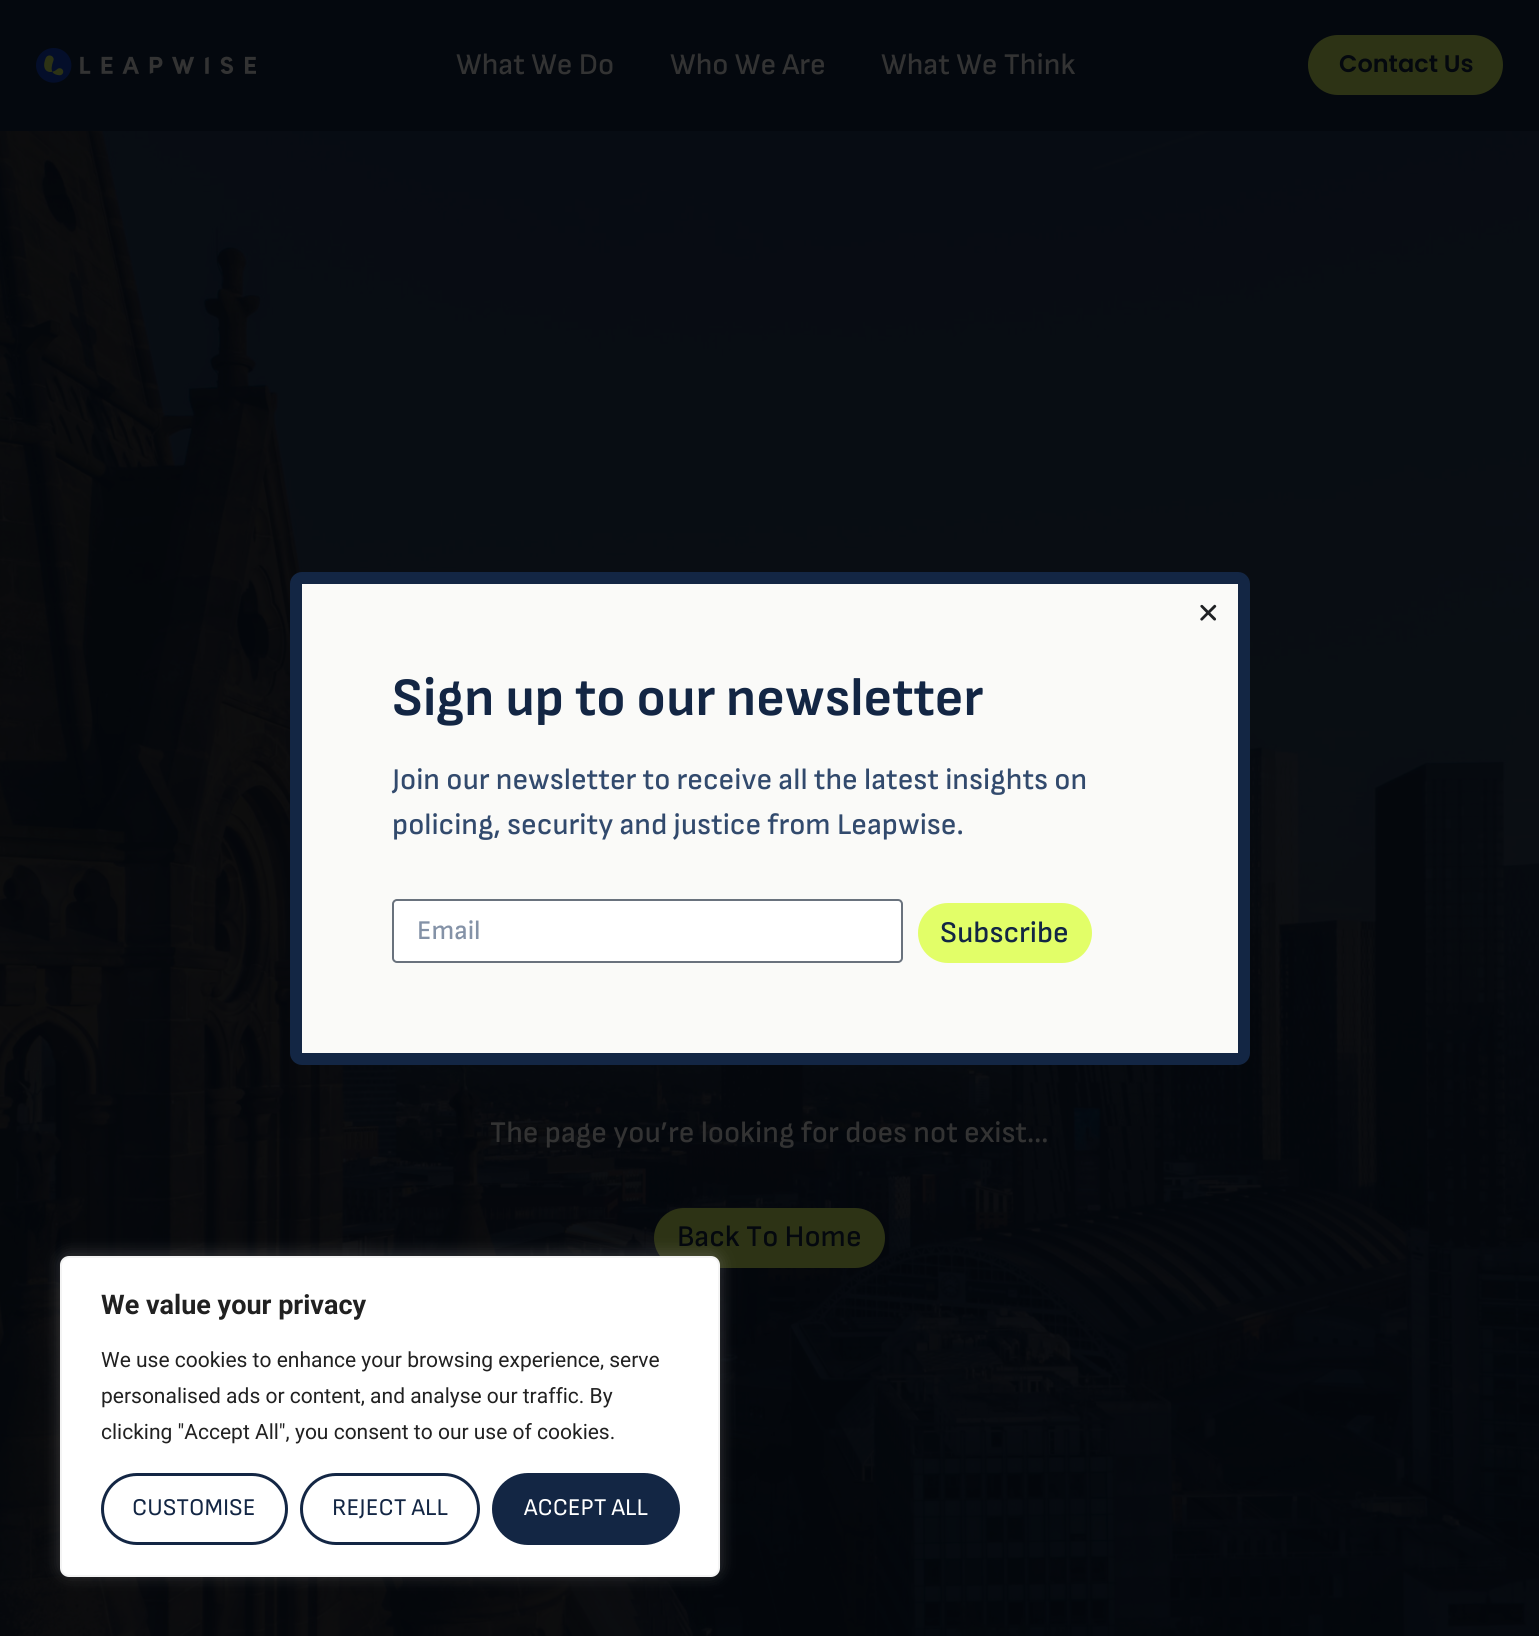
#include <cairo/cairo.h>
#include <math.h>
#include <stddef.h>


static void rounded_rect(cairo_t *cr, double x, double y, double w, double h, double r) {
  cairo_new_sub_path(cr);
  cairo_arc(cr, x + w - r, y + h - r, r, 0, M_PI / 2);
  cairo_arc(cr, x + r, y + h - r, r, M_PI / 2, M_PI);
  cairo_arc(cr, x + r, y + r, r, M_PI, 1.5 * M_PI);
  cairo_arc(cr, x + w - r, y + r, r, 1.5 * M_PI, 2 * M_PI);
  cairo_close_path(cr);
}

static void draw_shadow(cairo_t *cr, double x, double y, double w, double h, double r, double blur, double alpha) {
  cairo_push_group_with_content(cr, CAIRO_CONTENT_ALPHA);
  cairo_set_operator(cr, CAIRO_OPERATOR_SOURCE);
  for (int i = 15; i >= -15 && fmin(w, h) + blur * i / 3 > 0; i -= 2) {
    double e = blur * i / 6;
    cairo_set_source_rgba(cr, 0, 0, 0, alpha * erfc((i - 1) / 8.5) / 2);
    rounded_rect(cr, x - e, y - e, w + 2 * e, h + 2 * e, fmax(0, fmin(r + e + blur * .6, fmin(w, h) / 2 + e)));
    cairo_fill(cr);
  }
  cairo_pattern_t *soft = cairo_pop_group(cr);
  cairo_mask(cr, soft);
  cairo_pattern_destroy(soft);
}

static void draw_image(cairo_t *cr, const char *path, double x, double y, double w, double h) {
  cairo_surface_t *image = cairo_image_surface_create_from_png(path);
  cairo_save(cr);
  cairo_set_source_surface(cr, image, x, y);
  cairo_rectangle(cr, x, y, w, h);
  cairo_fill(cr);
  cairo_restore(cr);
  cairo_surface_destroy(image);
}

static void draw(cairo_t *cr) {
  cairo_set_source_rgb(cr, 1, 1, 1);
  cairo_paint(cr);
  cairo_set_source_rgb(cr, 4 / 255.0, 8 / 255.0, 14 / 255.0);
  cairo_rectangle(cr, 0, 0, 1539, 131);
  cairo_fill(cr);
  draw_image(cr, "images/1.png", 36, 48, 220, 35);
  cairo_set_source_rgb(cr, 45 / 255.0, 51 / 255.0, 21 / 255.0);
  rounded_rect(cr, 1308, 35, 195, 60, 30);
  cairo_fill(cr);
  draw_image(cr, "images/3.png", 0, 131, 1539, 1505);
  cairo_set_source_rgb(cr, 250 / 255.0, 250 / 255.0, 248 / 255.0);
  rounded_rect(cr, 296, 578, 948, 481, 6);
  cairo_fill_preserve(cr);
  cairo_set_source_rgb(cr, 19 / 255.0, 38 / 255.0, 68 / 255.0);
  cairo_set_line_width(cr, 12);
  cairo_stroke(cr);
  draw_image(cr, "images/2.png", 1200, 604, 17, 17);
  cairo_set_source_rgb(cr, 1, 1, 1);
  rounded_rect(cr, 393, 900, 509, 62, 4);
  cairo_fill_preserve(cr);
  cairo_set_source_rgb(cr, 105 / 255.0, 114 / 255.0, 125 / 255.0);
  cairo_set_line_width(cr, 2);
  cairo_stroke(cr);
  cairo_set_source_rgb(cr, 226 / 255.0, 254 / 255.0, 104 / 255.0);
  rounded_rect(cr, 918, 903, 174, 60, 30);
  cairo_fill(cr);
  cairo_set_source_rgb(cr, 45 / 255.0, 51 / 255.0, 21 / 255.0);
  rounded_rect(cr, 654, 1208, 231, 60, 30);
  cairo_fill(cr);
  cairo_set_source_rgb(cr, 172 / 255.0, 171 / 255.0, 171 / 255.0);
  draw_shadow(cr, 60, 1254, 660, 321, 9, 7.5, 0.3);
  cairo_set_source_rgb(cr, 1, 1, 1);
  rounded_rect(cr, 61, 1257, 658, 319, 8);
  cairo_fill_preserve(cr);
  cairo_set_source_rgb(cr, 244 / 255.0, 244 / 255.0, 244 / 255.0);
  cairo_stroke(cr);
  rounded_rect(cr, 102.5, 1474.5, 184, 69, 34.5);
  cairo_set_source_rgb(cr, 19 / 255.0, 38 / 255.0, 68 / 255.0);
  cairo_set_line_width(cr, 3);
  cairo_stroke(cr);
  rounded_rect(cr, 301.5, 1474.5, 177, 69, 34.5);
  cairo_stroke(cr);
  rounded_rect(cr, 493.5, 1474.5, 185, 69, 34.5);
  cairo_fill_preserve(cr);
  cairo_stroke(cr);
  cairo_select_font_face(cr, "Sofia Sans Medium", CAIRO_FONT_SLANT_NORMAL, CAIRO_FONT_WEIGHT_NORMAL);
  cairo_set_font_size(cr, 30);
  cairo_set_source_rgb(cr, 51 / 255.0, 51 / 255.0, 51 / 255.0);
  cairo_move_to(cr, 456, 74);
  cairo_show_text(cr, "What We Do");
  cairo_move_to(cr, 670, 74);
  cairo_show_text(cr, "Who We Are");
  cairo_move_to(cr, 881, 74);
  cairo_show_text(cr, "What We Think");
  cairo_select_font_face(cr, "Poppins SemiBold", CAIRO_FONT_SLANT_NORMAL, CAIRO_FONT_WEIGHT_NORMAL);
  cairo_set_font_size(cr, 24);
  cairo_set_source_rgb(cr, 4 / 255.0, 8 / 255.0, 14 / 255.0);
  cairo_move_to(cr, 1339, 72);
  cairo_show_text(cr, "Contact Us");
  cairo_select_font_face(cr, "Sofia Sans", CAIRO_FONT_SLANT_NORMAL, CAIRO_FONT_WEIGHT_BOLD);
  cairo_set_font_size(cr, 54);
  cairo_set_source_rgb(cr, 19 / 255.0, 38 / 255.0, 68 / 255.0);
  cairo_move_to(cr, 392, 715);
  cairo_show_text(cr, "Sign up to our newsletter");
  cairo_select_font_face(cr, "Sofia Sans Medium", CAIRO_FONT_SLANT_NORMAL, CAIRO_FONT_WEIGHT_NORMAL);
  cairo_set_font_size(cr, 30);
  cairo_set_source_rgb(cr, 50 / 255.0, 74 / 255.0, 109 / 255.0);
  cairo_move_to(cr, 392, 789);
  cairo_show_text(cr, "Join our newsletter to receive all the latest insights on");
  cairo_move_to(cr, 392, 834);
  cairo_show_text(cr, "policing, security and justice from Leapwise.");
  cairo_set_font_size(cr, 27);
  cairo_set_source_rgb(cr, 132 / 255.0, 146 / 255.0, 167 / 255.0);
  cairo_move_to(cr, 417, 939);
  cairo_show_text(cr, "Email");
  cairo_set_font_size(cr, 30);
  cairo_set_source_rgb(cr, 19 / 255.0, 38 / 255.0, 68 / 255.0);
  cairo_move_to(cr, 940, 942);
  cairo_show_text(cr, "Subscribe");
  cairo_set_source_rgb(cr, 51 / 255.0, 51 / 255.0, 51 / 255.0);
  cairo_move_to(cr, 490, 1142);
  cairo_show_text(cr, "The page you’re looking for does not exist…");
  cairo_set_source_rgb(cr, 4 / 255.0, 8 / 255.0, 14 / 255.0);
  cairo_move_to(cr, 677, 1246);
  cairo_show_text(cr, "Back To Home");
  cairo_select_font_face(cr, "Roboto", CAIRO_FONT_SLANT_NORMAL, CAIRO_FONT_WEIGHT_BOLD);
  cairo_set_font_size(cr, 27);
  cairo_set_source_rgb(cr, 33 / 255.0, 33 / 255.0, 33 / 255.0);
  cairo_move_to(cr, 101, 1314);
  cairo_show_text(cr, "We value your privacy");
  cairo_select_font_face(cr, "Roboto", CAIRO_FONT_SLANT_NORMAL, CAIRO_FONT_WEIGHT_NORMAL);
  cairo_set_font_size(cr, 21);
  cairo_move_to(cr, 101, 1367);
  cairo_show_text(cr, "We use cookies to enhance your browsing experience, serve");
  cairo_move_to(cr, 101, 1403);
  cairo_show_text(cr, "personalised ads or content, and analyse our traffic. By");
  cairo_move_to(cr, 101, 1439);
  cairo_show_text(cr, "clicking \"Accept All\", you consent to our use of cookies.");
  cairo_select_font_face(cr, "Sofia Sans", CAIRO_FONT_SLANT_NORMAL, CAIRO_FONT_WEIGHT_NORMAL);
  cairo_set_font_size(cr, 24);
  cairo_set_source_rgb(cr, 19 / 255.0, 38 / 255.0, 68 / 255.0);
  cairo_move_to(cr, 132, 1515);
  cairo_show_text(cr, "CUSTOMISE");
  cairo_move_to(cr, 332, 1515);
  cairo_show_text(cr, "REJECT ALL");
  cairo_set_source_rgb(cr, 1, 1, 1);
  cairo_move_to(cr, 524, 1515);
  cairo_show_text(cr, "ACCEPT ALL");
}

int main(void) {
  cairo_surface_t *surface = cairo_image_surface_create(CAIRO_FORMAT_RGB24, 1539, 1636);
  cairo_t *cr = cairo_create(surface);
  cairo_font_options_t *options = cairo_font_options_create();
  cairo_font_options_set_hint_metrics(options, CAIRO_HINT_METRICS_OFF);
  cairo_font_options_set_hint_style(options, CAIRO_HINT_STYLE_NONE);
  cairo_set_font_options(cr, options);
  cairo_set_miter_limit(cr, 4);
  draw(cr);
  cairo_surface_write_to_png(surface, "out.png");
  cairo_font_options_destroy(options);
  cairo_destroy(cr);
  cairo_surface_destroy(surface);
  return 0;
}
